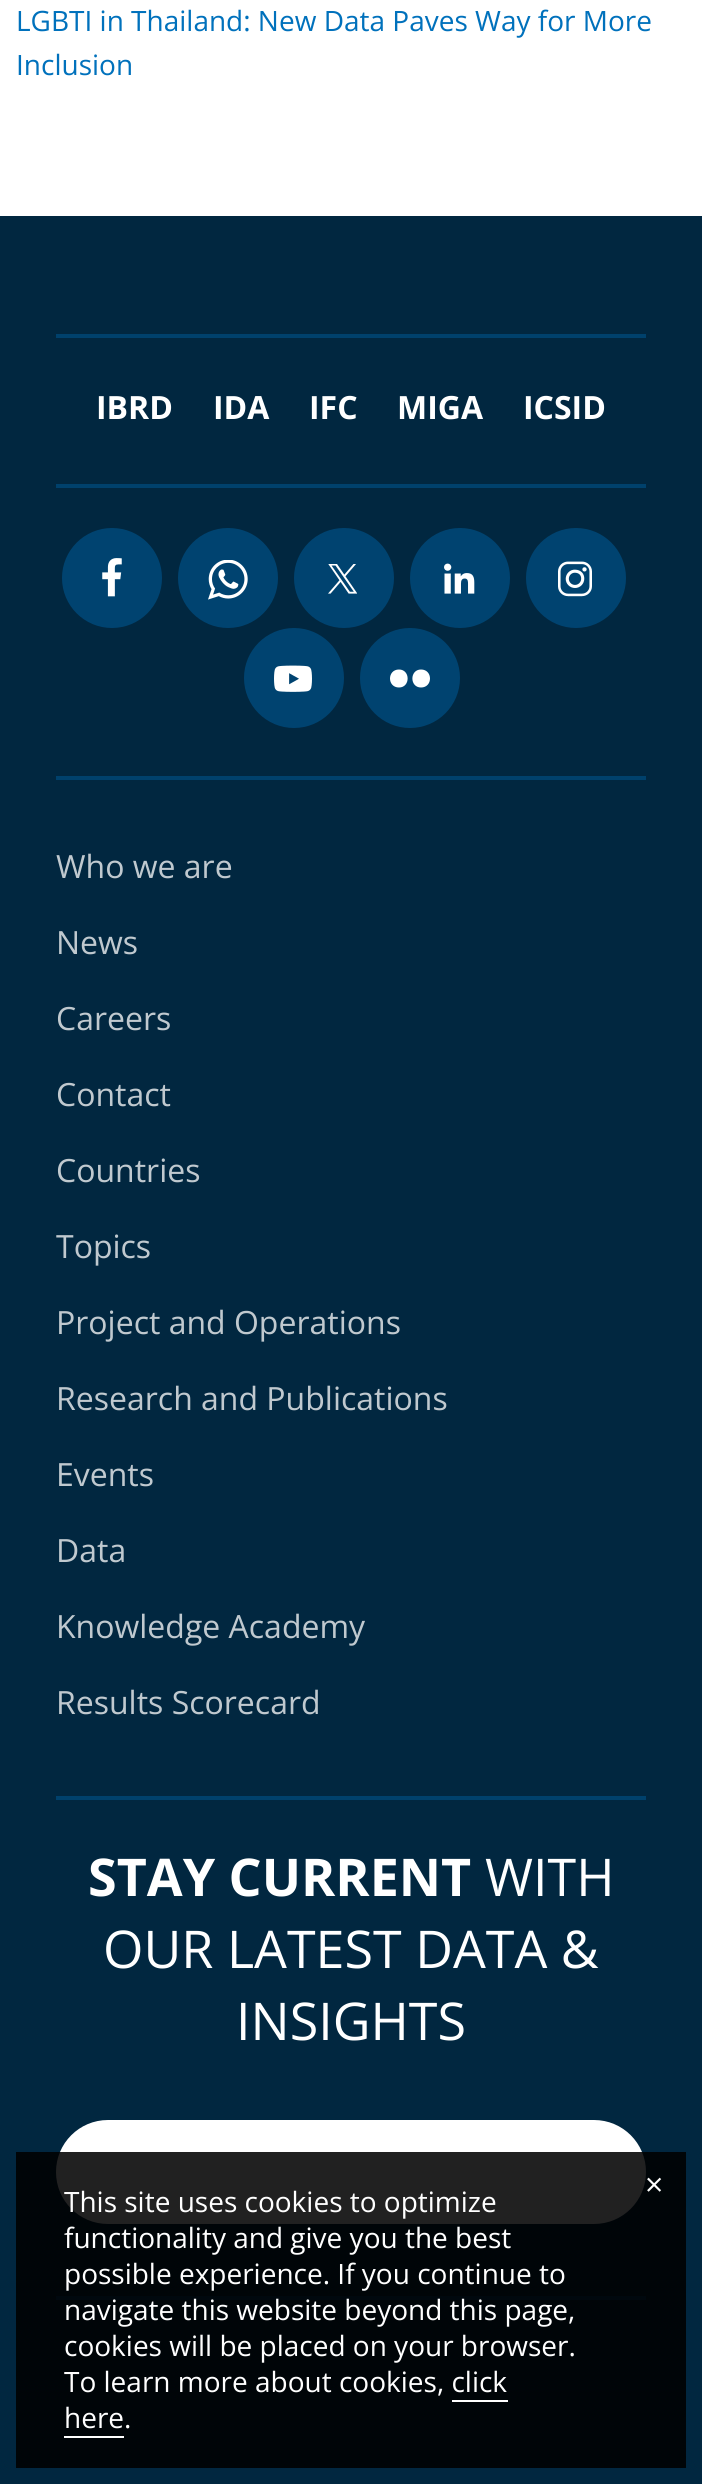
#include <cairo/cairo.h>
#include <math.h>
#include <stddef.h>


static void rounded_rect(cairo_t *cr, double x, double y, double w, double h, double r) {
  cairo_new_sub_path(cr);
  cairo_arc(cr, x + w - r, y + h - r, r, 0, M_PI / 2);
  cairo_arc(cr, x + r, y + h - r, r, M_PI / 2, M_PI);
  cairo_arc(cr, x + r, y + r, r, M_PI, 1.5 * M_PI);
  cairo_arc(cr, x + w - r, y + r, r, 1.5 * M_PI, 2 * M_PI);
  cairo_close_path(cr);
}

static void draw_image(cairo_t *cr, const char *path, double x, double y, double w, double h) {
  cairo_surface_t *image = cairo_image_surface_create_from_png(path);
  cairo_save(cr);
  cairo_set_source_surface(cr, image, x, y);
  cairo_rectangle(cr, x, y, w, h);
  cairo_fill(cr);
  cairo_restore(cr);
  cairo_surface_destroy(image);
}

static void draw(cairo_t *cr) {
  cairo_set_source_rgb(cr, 1, 1, 1);
  cairo_paint(cr);
  cairo_set_source_rgb(cr, 1 / 255.0, 39 / 255.0, 64 / 255.0);
  cairo_rectangle(cr, 0, 216, 702, 2268);
  cairo_fill(cr);
  cairo_set_source_rgb(cr, 0, 65 / 255.0, 108 / 255.0);
  cairo_rectangle(cr, 56, 776, 590, 4);
  cairo_fill(cr);
  cairo_rectangle(cr, 56, 334, 590, 4);
  cairo_fill(cr);
  cairo_rectangle(cr, 56, 484, 590, 4);
  cairo_fill(cr);
  cairo_set_source_rgb(cr, 0, 67 / 255.0, 112 / 255.0);
  cairo_arc(cr, 112, 578, 50, 0, 2 * M_PI);
  cairo_fill(cr);
  draw_image(cr, "images/1.png", 102, 558, 20, 39);
  cairo_arc(cr, 228, 578, 50, 0, 2 * M_PI);
  cairo_fill(cr);
  draw_image(cr, "images/2.png", 208, 560, 40, 40);
  cairo_arc(cr, 344, 578, 50, 0, 2 * M_PI);
  cairo_fill(cr);
  draw_image(cr, "images/3.png", 328, 564, 29, 30);
  cairo_arc(cr, 460, 578, 50, 0, 2 * M_PI);
  cairo_fill(cr);
  draw_image(cr, "images/4.png", 444, 563, 31, 31);
  cairo_arc(cr, 576, 578, 50, 0, 2 * M_PI);
  cairo_fill(cr);
  draw_image(cr, "images/5.png", 558, 561, 34, 36);
  cairo_arc(cr, 294, 678, 50, 0, 2 * M_PI);
  cairo_fill(cr);
  draw_image(cr, "images/6.png", 274, 665, 38, 27);
  cairo_arc(cr, 410, 678, 50, 0, 2 * M_PI);
  cairo_fill(cr);
  cairo_set_source_rgb(cr, 1, 1, 1);
  cairo_new_path(cr);
  cairo_move_to(cr, 399, 669.5);
  cairo_curve_to(cr, 387, 669.5, 387, 687.5, 399, 687.5);
  cairo_curve_to(cr, 410.5, 687.5, 410.5, 669.5, 399, 669.5);
  cairo_close_path(cr);
  cairo_move_to(cr, 421, 669.5);
  cairo_curve_to(cr, 409.5, 669.5, 409.5, 687.5, 421, 687.5);
  cairo_curve_to(cr, 433, 687.5, 433, 669.5, 421, 669.5);
  cairo_close_path(cr);
  cairo_fill(cr);
  cairo_set_source_rgb(cr, 0, 65 / 255.0, 108 / 255.0);
  cairo_rectangle(cr, 56, 2296, 590, 4);
  cairo_fill(cr);
  cairo_rectangle(cr, 56, 1796, 590, 4);
  cairo_fill(cr);
  cairo_set_source_rgb(cr, 1, 1, 1);
  rounded_rect(cr, 56, 2120, 590, 104, 52);
  cairo_fill(cr);
  cairo_set_source_rgba(cr, 0, 0, 0, 0.87);
  cairo_rectangle(cr, 16, 2152, 670, 316);
  cairo_fill(cr);
  cairo_set_source_rgb(cr, 1, 1, 1);
  cairo_rectangle(cr, 452, 2400, 56, 2);
  cairo_fill(cr);
  cairo_rectangle(cr, 64, 2436, 60, 2);
  cairo_fill(cr);
  cairo_select_font_face(cr, "Open Sans", CAIRO_FONT_SLANT_NORMAL, CAIRO_FONT_WEIGHT_NORMAL);
  cairo_set_font_size(cr, 28);
  cairo_set_source_rgb(cr, 0, 113 / 255.0, 188 / 255.0);
  cairo_move_to(cr, 16, 31);
  cairo_show_text(cr, "LGBTI in Thailand: New Data Paves Way for More");
  cairo_move_to(cr, 16, 75);
  cairo_show_text(cr, "Inclusion");
  cairo_select_font_face(cr, "Open Sans", CAIRO_FONT_SLANT_NORMAL, CAIRO_FONT_WEIGHT_BOLD);
  cairo_set_font_size(cr, 32);
  cairo_set_source_rgb(cr, 1, 1, 1);
  cairo_move_to(cr, 96, 419);
  cairo_show_text(cr, "IBRD");
  cairo_move_to(cr, 213, 419);
  cairo_show_text(cr, "IDA");
  cairo_move_to(cr, 309, 419);
  cairo_show_text(cr, "IFC");
  cairo_move_to(cr, 397, 419);
  cairo_show_text(cr, "MIGA");
  cairo_move_to(cr, 523, 419);
  cairo_show_text(cr, "ICSID");
  cairo_select_font_face(cr, "Open Sans", CAIRO_FONT_SLANT_NORMAL, CAIRO_FONT_WEIGHT_NORMAL);
  cairo_set_source_rgb(cr, 192 / 255.0, 201 / 255.0, 207 / 255.0);
  cairo_move_to(cr, 56, 878);
  cairo_show_text(cr, "Who we are");
  cairo_move_to(cr, 56, 954);
  cairo_show_text(cr, "News");
  cairo_move_to(cr, 56, 1030);
  cairo_show_text(cr, "Careers");
  cairo_move_to(cr, 56, 1106);
  cairo_show_text(cr, "Contact");
  cairo_move_to(cr, 56, 1182);
  cairo_show_text(cr, "Countries");
  cairo_move_to(cr, 56, 1258);
  cairo_show_text(cr, "Topics");
  cairo_move_to(cr, 56, 1334);
  cairo_show_text(cr, "Project and Operations");
  cairo_move_to(cr, 56, 1410);
  cairo_show_text(cr, "Research and Publications");
  cairo_move_to(cr, 56, 1486);
  cairo_show_text(cr, "Events");
  cairo_move_to(cr, 56, 1562);
  cairo_show_text(cr, "Data");
  cairo_move_to(cr, 56, 1638);
  cairo_show_text(cr, "Knowledge Academy");
  cairo_move_to(cr, 56, 1714);
  cairo_show_text(cr, "Results Scorecard");
  cairo_select_font_face(cr, "Open Sans", CAIRO_FONT_SLANT_NORMAL, CAIRO_FONT_WEIGHT_BOLD);
  cairo_set_font_size(cr, 52);
  cairo_set_source_rgb(cr, 1, 1, 1);
  cairo_move_to(cr, 88, 1896);
  cairo_show_text(cr, "STAY CURRENT");
  cairo_select_font_face(cr, "Open Sans", CAIRO_FONT_SLANT_NORMAL, CAIRO_FONT_WEIGHT_NORMAL);
  cairo_move_to(cr, 485, 1896);
  cairo_show_text(cr, "WITH");
  cairo_move_to(cr, 103, 1968);
  cairo_show_text(cr, "OUR LATEST DATA &");
  cairo_move_to(cr, 236, 2040);
  cairo_show_text(cr, "INSIGHTS");
  cairo_set_font_size(cr, 32);
  cairo_move_to(cr, 645, 2196);
  cairo_show_text(cr, "×");
  cairo_set_font_size(cr, 28);
  cairo_move_to(cr, 64, 2212);
  cairo_show_text(cr, "This site uses cookies to optimize");
  cairo_move_to(cr, 64, 2248);
  cairo_show_text(cr, "functionality and give you the best");
  cairo_move_to(cr, 64, 2284);
  cairo_show_text(cr, "possible experience. If you continue to");
  cairo_move_to(cr, 64, 2320);
  cairo_show_text(cr, "navigate this website beyond this page,");
  cairo_move_to(cr, 64, 2356);
  cairo_show_text(cr, "cookies will be placed on your browser.");
  cairo_move_to(cr, 64, 2392);
  cairo_show_text(cr, "To learn more about cookies, click");
  cairo_move_to(cr, 64, 2428);
  cairo_show_text(cr, "here.");
}

int main(void) {
  cairo_surface_t *surface = cairo_image_surface_create(CAIRO_FORMAT_RGB24, 702, 2484);
  cairo_t *cr = cairo_create(surface);
  cairo_font_options_t *options = cairo_font_options_create();
  cairo_font_options_set_hint_metrics(options, CAIRO_HINT_METRICS_OFF);
  cairo_font_options_set_hint_style(options, CAIRO_HINT_STYLE_NONE);
  cairo_set_font_options(cr, options);
  cairo_set_miter_limit(cr, 4);
  draw(cr);
  cairo_surface_write_to_png(surface, "out.png");
  cairo_font_options_destroy(options);
  cairo_destroy(cr);
  cairo_surface_destroy(surface);
  return 0;
}
